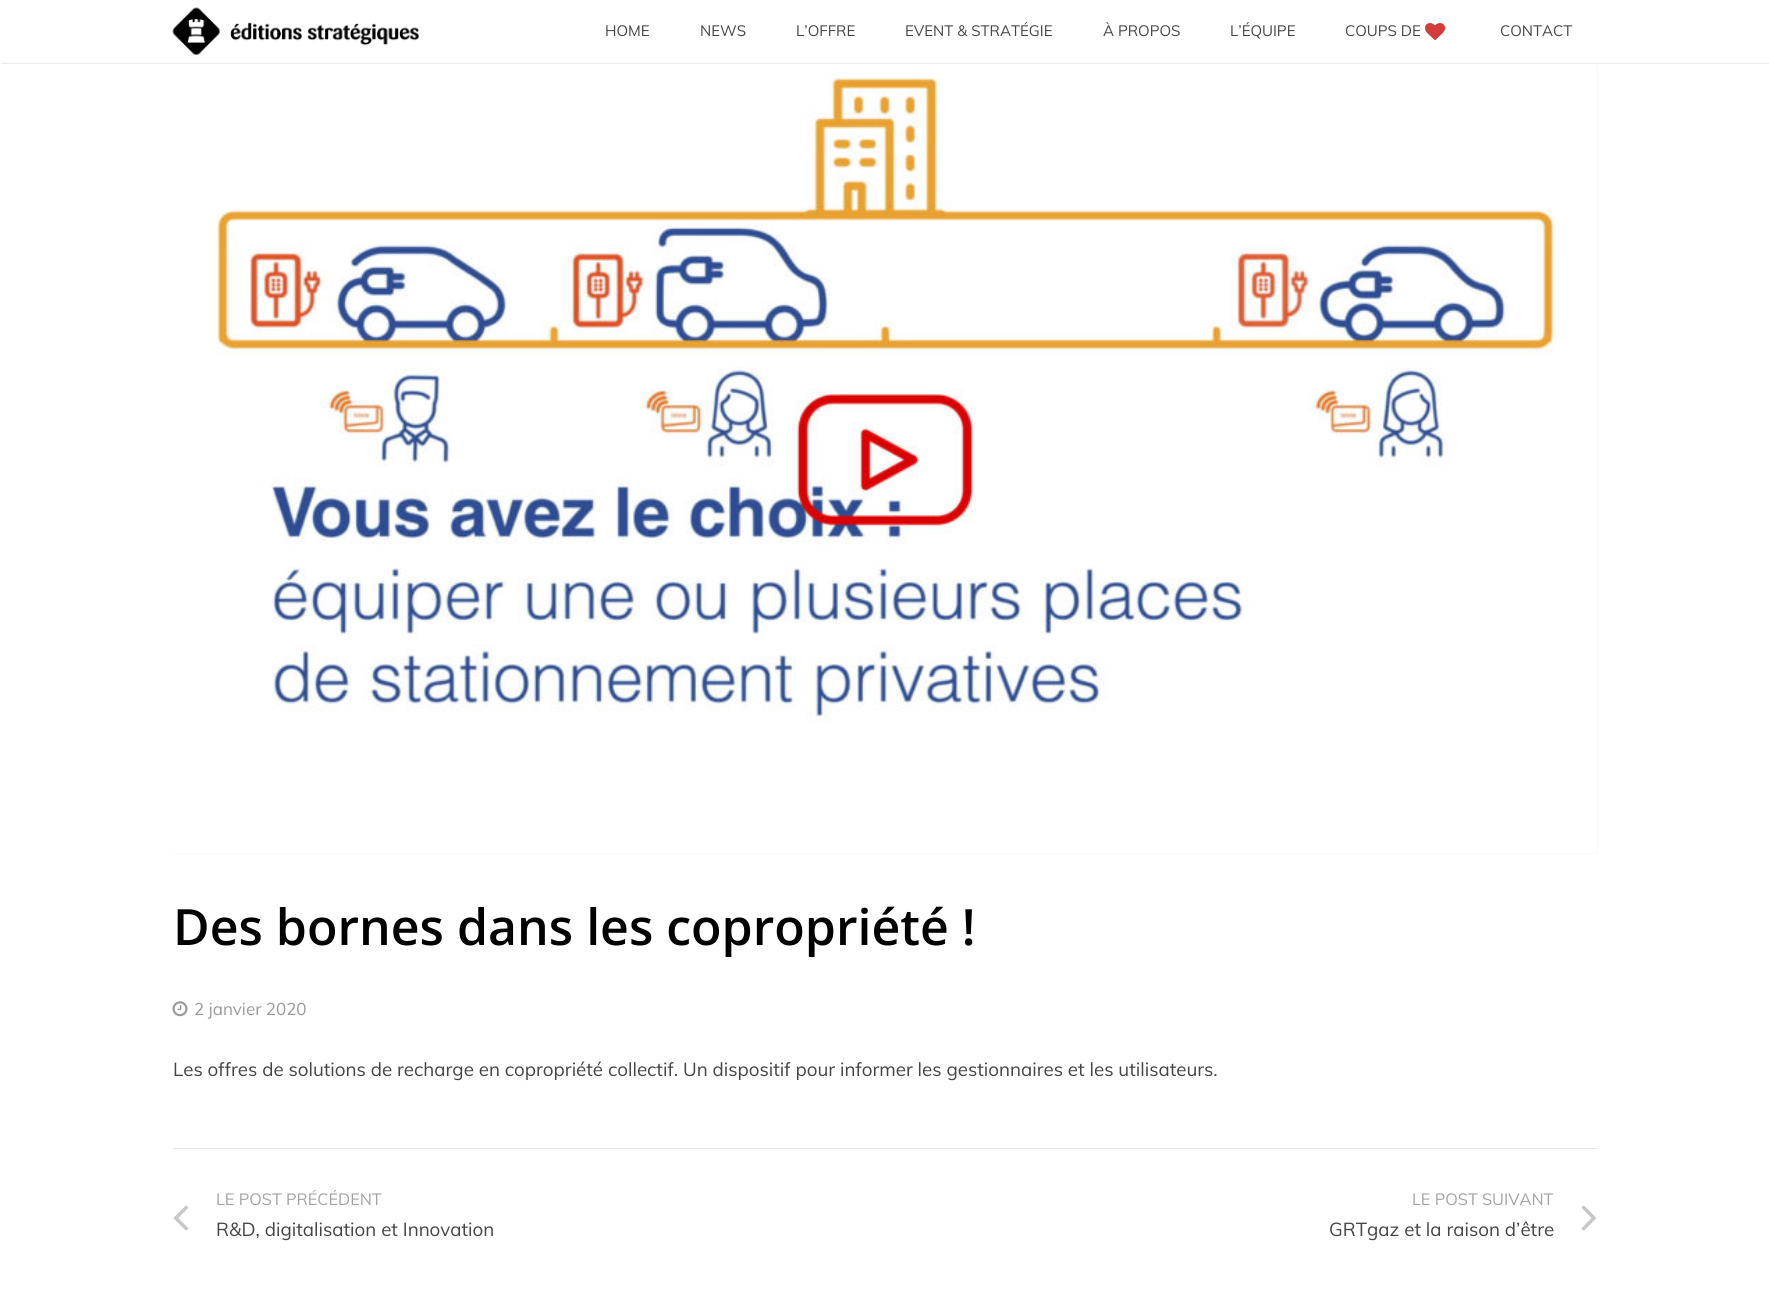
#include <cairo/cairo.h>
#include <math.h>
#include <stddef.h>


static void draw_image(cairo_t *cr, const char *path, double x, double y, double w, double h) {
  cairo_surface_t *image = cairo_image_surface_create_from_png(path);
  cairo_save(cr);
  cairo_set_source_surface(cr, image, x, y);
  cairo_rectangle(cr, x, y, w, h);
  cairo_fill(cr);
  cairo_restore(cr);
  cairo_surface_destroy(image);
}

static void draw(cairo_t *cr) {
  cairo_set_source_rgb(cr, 1, 1, 1);
  cairo_paint(cr);
  cairo_set_source_rgb(cr, 235 / 255.0, 235 / 255.0, 235 / 255.0);
  cairo_rectangle(cr, 1, 63, 1768, 1);
  cairo_fill(cr);
  draw_image(cr, "images/1.png", 172, 7, 247, 48);
  draw_image(cr, "images/2.png", 1425, 23, 20, 18);
  cairo_set_source_rgb(cr, 242 / 255.0, 242 / 255.0, 242 / 255.0);
  cairo_rectangle(cr, 173, 66, 1425, 788);
  cairo_fill(cr);
  draw_image(cr, "images/3.png", 173, 66, 1425, 788);
  draw_image(cr, "images/4.png", 172, 1001, 16, 16);
  cairo_set_source_rgb(cr, 229 / 255.0, 229 / 255.0, 229 / 255.0);
  cairo_rectangle(cr, 173, 1148, 1425, 1);
  cairo_fill(cr);
  draw_image(cr, "images/5.png", 173, 1205, 16, 26);
  draw_image(cr, "images/6.png", 1581, 1205, 15, 26);
  cairo_select_font_face(cr, "Muli", CAIRO_FONT_SLANT_NORMAL, CAIRO_FONT_WEIGHT_NORMAL);
  cairo_set_font_size(cr, 15);
  cairo_set_source_rgb(cr, 68 / 255.0, 68 / 255.0, 68 / 255.0);
  cairo_move_to(cr, 605, 36);
  cairo_show_text(cr, "HOME");
  cairo_move_to(cr, 700, 36);
  cairo_show_text(cr, "NEWS");
  cairo_move_to(cr, 796, 36);
  cairo_show_text(cr, "L’OFFRE");
  cairo_move_to(cr, 905, 36);
  cairo_show_text(cr, "EVENT & STRATÉGIE");
  cairo_move_to(cr, 1103, 36);
  cairo_show_text(cr, "À PROPOS");
  cairo_move_to(cr, 1230, 36);
  cairo_show_text(cr, "L’ÉQUIPE");
  cairo_move_to(cr, 1345, 36);
  cairo_show_text(cr, "COUPS DE");
  cairo_move_to(cr, 1500, 36);
  cairo_show_text(cr, "CONTACT");
  cairo_select_font_face(cr, "Open Sans SemiBold", CAIRO_FONT_SLANT_NORMAL, CAIRO_FONT_WEIGHT_NORMAL);
  cairo_set_font_size(cr, 50);
  cairo_set_source_rgb(cr, 0, 0, 0);
  cairo_move_to(cr, 173, 945);
  cairo_show_text(cr, "Des bornes dans les copropriété !");
  cairo_select_font_face(cr, "Muli", CAIRO_FONT_SLANT_NORMAL, CAIRO_FONT_WEIGHT_NORMAL);
  cairo_set_font_size(cr, 17);
  cairo_set_source_rgb(cr, 153 / 255.0, 153 / 255.0, 153 / 255.0);
  cairo_move_to(cr, 194, 1015);
  cairo_show_text(cr, "2 janvier 2020");
  cairo_set_font_size(cr, 18.75);
  cairo_set_source_rgb(cr, 68 / 255.0, 68 / 255.0, 68 / 255.0);
  cairo_move_to(cr, 173, 1076);
  cairo_show_text(cr, "Les offres de solutions de recharge en copropriété collectif. Un dispositif pour informer les gestionnaires et les utilisateurs.");
  cairo_set_font_size(cr, 16.25);
  cairo_set_source_rgb(cr, 162 / 255.0, 162 / 255.0, 162 / 255.0);
  cairo_move_to(cr, 216, 1205);
  cairo_show_text(cr, "LE POST PRÉCÉDENT");
  cairo_set_font_size(cr, 18.75);
  cairo_set_source_rgb(cr, 68 / 255.0, 68 / 255.0, 68 / 255.0);
  cairo_move_to(cr, 216, 1236);
  cairo_show_text(cr, "R&D, digitalisation et Innovation");
  cairo_set_font_size(cr, 16.25);
  cairo_set_source_rgb(cr, 162 / 255.0, 162 / 255.0, 162 / 255.0);
  cairo_move_to(cr, 1412, 1205);
  cairo_show_text(cr, "LE POST SUIVANT");
  cairo_set_font_size(cr, 18.75);
  cairo_set_source_rgb(cr, 68 / 255.0, 68 / 255.0, 68 / 255.0);
  cairo_move_to(cr, 1329, 1236);
  cairo_show_text(cr, "GRTgaz et la raison d’être");
}

int main(void) {
  cairo_surface_t *surface = cairo_image_surface_create(CAIRO_FORMAT_RGB24, 1769, 1316);
  cairo_t *cr = cairo_create(surface);
  cairo_font_options_t *options = cairo_font_options_create();
  cairo_font_options_set_hint_metrics(options, CAIRO_HINT_METRICS_OFF);
  cairo_font_options_set_hint_style(options, CAIRO_HINT_STYLE_NONE);
  cairo_set_font_options(cr, options);
  cairo_set_miter_limit(cr, 4);
  draw(cr);
  cairo_surface_write_to_png(surface, "out.png");
  cairo_font_options_destroy(options);
  cairo_destroy(cr);
  cairo_surface_destroy(surface);
  return 0;
}
